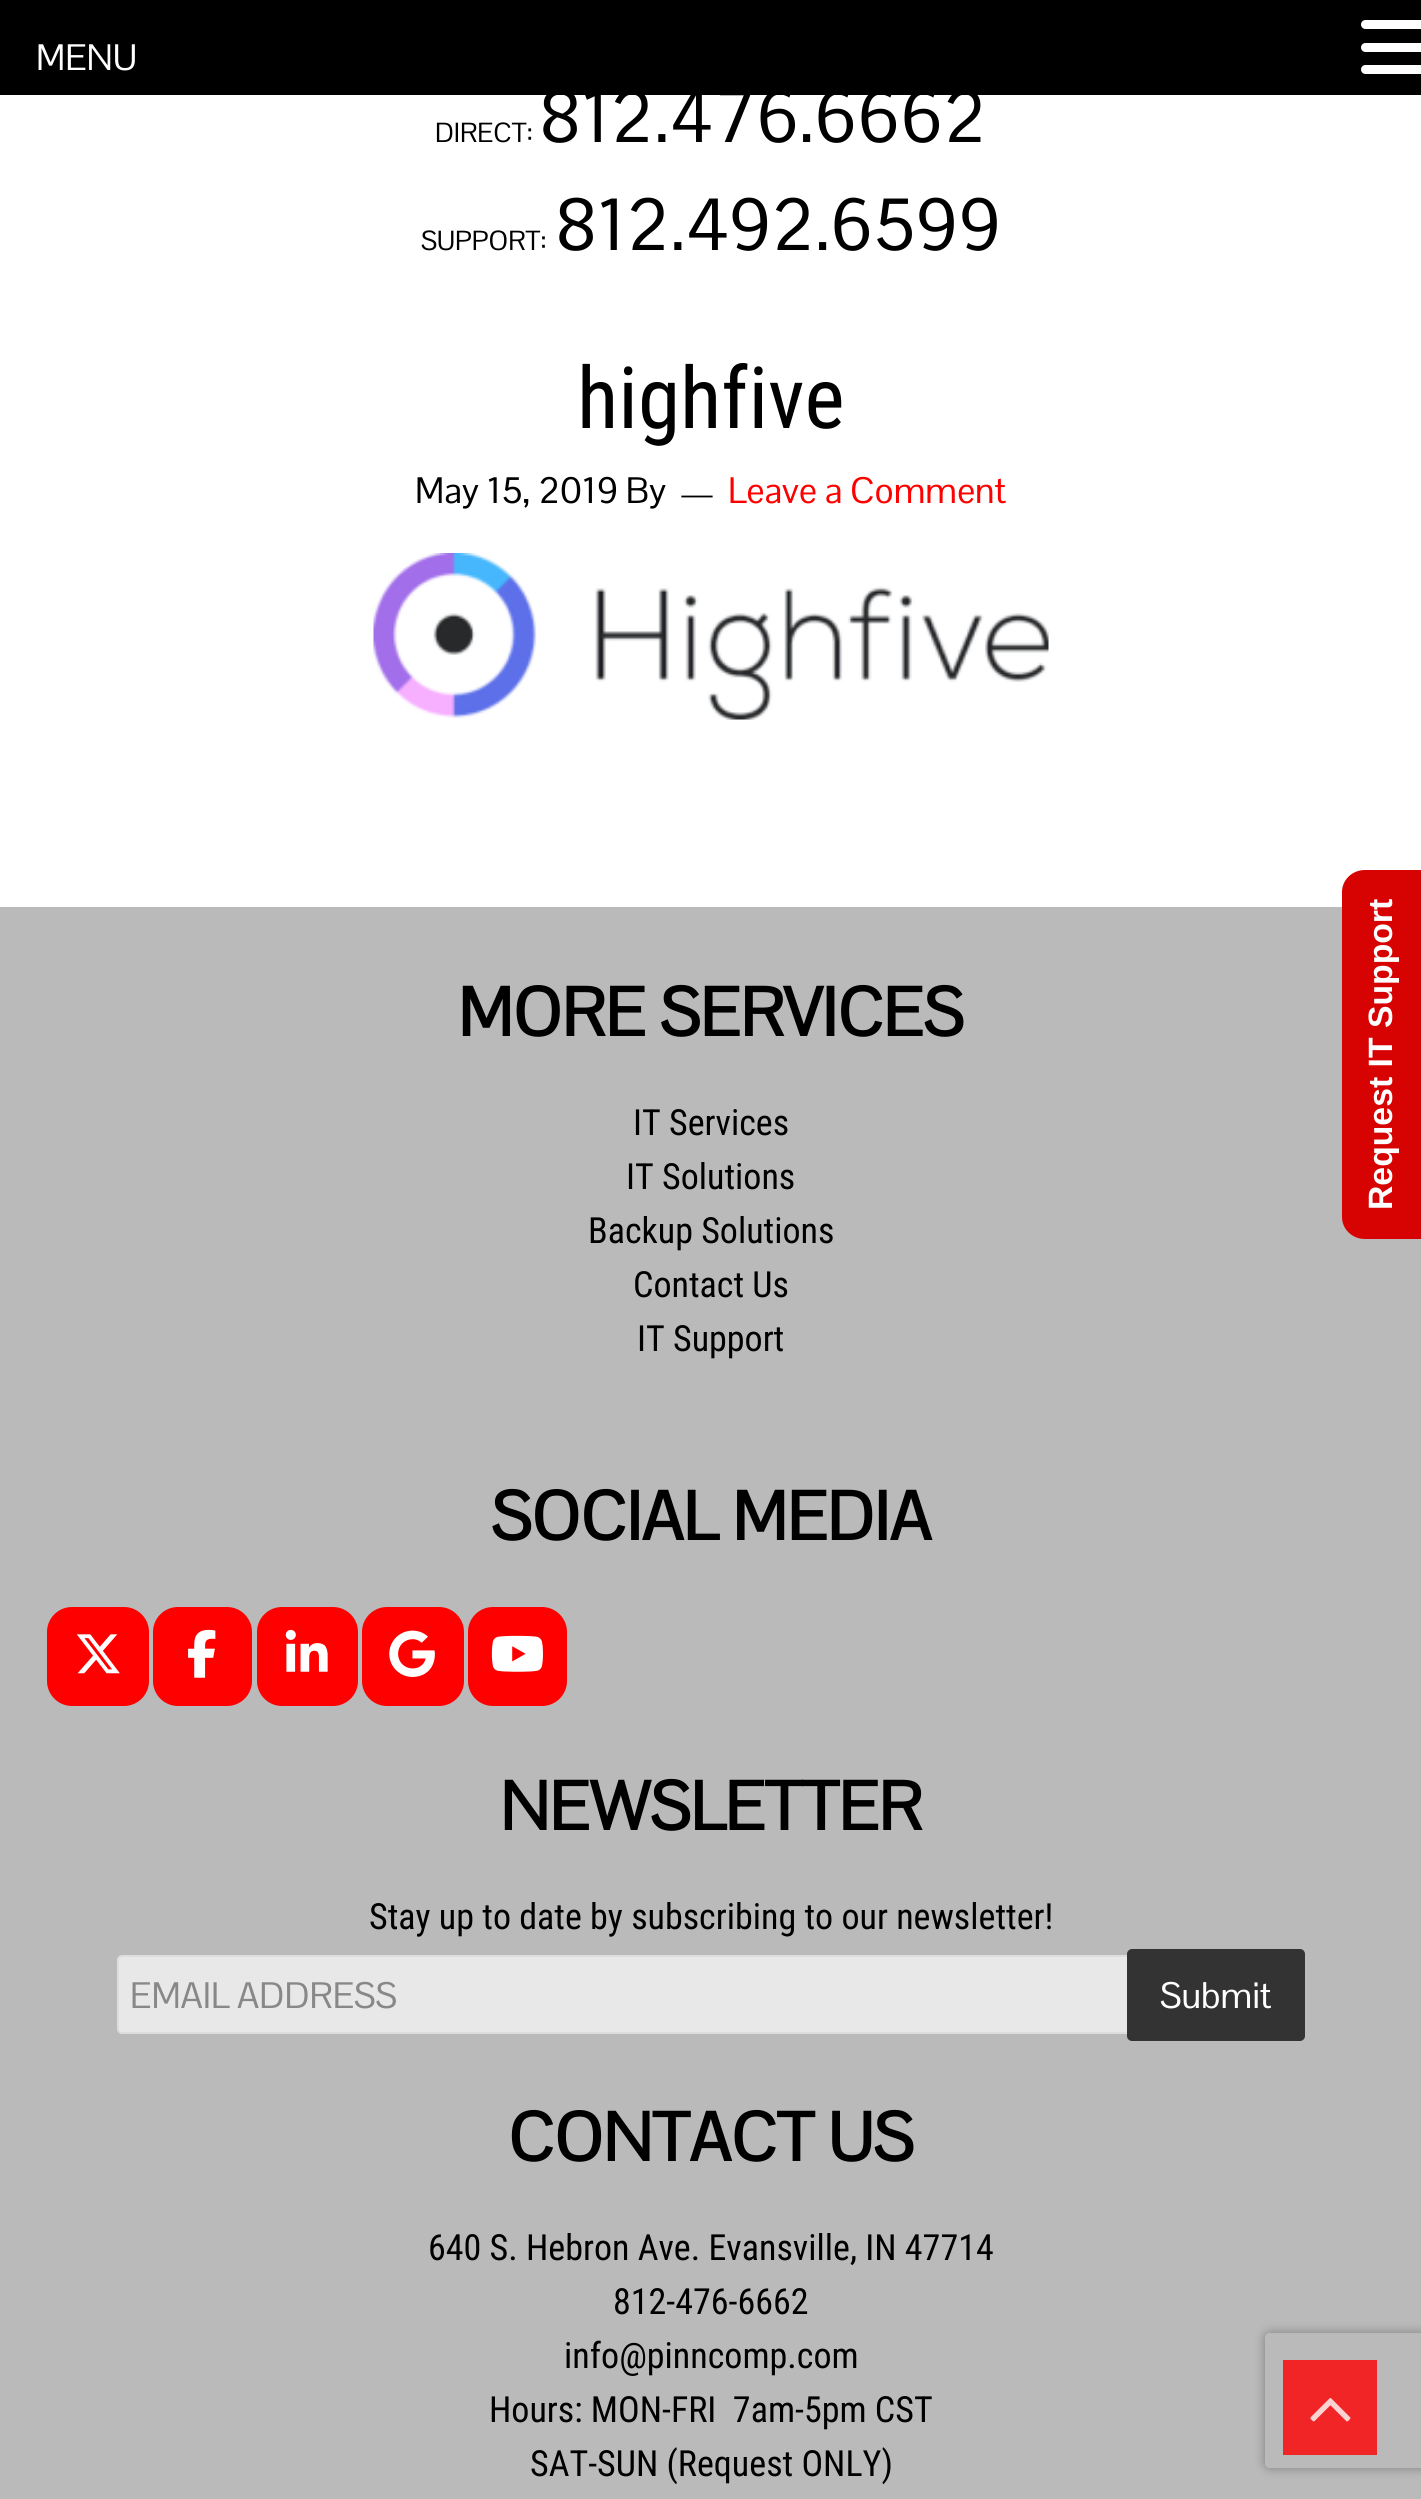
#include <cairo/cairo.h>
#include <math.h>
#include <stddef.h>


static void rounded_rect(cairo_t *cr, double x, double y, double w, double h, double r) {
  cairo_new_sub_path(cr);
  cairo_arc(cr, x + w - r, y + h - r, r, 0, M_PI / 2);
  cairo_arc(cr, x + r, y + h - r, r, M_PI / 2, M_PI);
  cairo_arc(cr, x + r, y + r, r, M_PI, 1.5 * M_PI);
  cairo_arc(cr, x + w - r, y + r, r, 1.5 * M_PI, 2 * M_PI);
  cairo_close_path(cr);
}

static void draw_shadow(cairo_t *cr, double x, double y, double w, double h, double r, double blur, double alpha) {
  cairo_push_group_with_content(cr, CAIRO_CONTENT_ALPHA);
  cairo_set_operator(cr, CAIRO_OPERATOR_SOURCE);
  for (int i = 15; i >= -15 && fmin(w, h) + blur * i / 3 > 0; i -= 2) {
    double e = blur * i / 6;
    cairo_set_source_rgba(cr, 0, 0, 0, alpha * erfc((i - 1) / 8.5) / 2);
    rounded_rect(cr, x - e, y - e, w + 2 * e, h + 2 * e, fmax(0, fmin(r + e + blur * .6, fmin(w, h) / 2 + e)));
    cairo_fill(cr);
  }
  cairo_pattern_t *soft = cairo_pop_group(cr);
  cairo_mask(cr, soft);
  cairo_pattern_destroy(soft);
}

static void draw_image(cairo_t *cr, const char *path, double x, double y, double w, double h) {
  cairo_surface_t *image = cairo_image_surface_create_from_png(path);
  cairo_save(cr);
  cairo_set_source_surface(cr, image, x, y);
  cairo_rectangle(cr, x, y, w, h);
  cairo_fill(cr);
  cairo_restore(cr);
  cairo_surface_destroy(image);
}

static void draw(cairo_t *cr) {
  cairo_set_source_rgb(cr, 1, 1, 1);
  cairo_paint(cr);
  cairo_set_source_rgb(cr, 0, 0, 0);
  cairo_rectangle(cr, 0, 0, 1421, 95);
  cairo_fill(cr);
  cairo_set_source_rgb(cr, 1, 1, 1);
  rounded_rect(cr, 1361, 20, 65, 9, 4.5);
  cairo_fill(cr);
  rounded_rect(cr, 1361, 43, 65, 9, 4.5);
  cairo_fill(cr);
  rounded_rect(cr, 1361, 65, 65, 9, 4.5);
  cairo_fill(cr);
  draw_image(cr, "images/1.png", 373, 553, 676, 167);
  cairo_set_source_rgb(cr, 186 / 255.0, 186 / 255.0, 186 / 255.0);
  cairo_rectangle(cr, 0, 907, 1421, 1592);
  cairo_fill(cr);
  cairo_set_source_rgb(cr, 1, 0, 0);
  rounded_rect(cr, 48, 1608, 100, 97, 24);
  cairo_fill_preserve(cr);
  cairo_stroke(cr);
  draw_image(cr, "images/2.png", 76, 1634, 44, 40);
  rounded_rect(cr, 154, 1608, 97, 97, 24);
  cairo_fill_preserve(cr);
  cairo_stroke(cr);
  draw_image(cr, "images/3.png", 188, 1629, 28, 49);
  rounded_rect(cr, 258, 1608, 99, 97, 24);
  cairo_fill_preserve(cr);
  cairo_stroke(cr);
  draw_image(cr, "images/4.png", 285, 1629, 43, 43);
  rounded_rect(cr, 363, 1608, 100, 97, 24);
  cairo_fill_preserve(cr);
  cairo_stroke(cr);
  draw_image(cr, "images/5.png", 389, 1630, 46, 47);
  rounded_rect(cr, 469, 1608, 97, 97, 24);
  cairo_fill_preserve(cr);
  cairo_stroke(cr);
  draw_image(cr, "images/6.png", 491, 1635, 52, 37);
  cairo_set_source_rgb(cr, 232 / 255.0, 232 / 255.0, 232 / 255.0);
  rounded_rect(cr, 118, 1956, 1024, 77, 4);
  cairo_fill_preserve(cr);
  cairo_set_source_rgb(cr, 221 / 255.0, 221 / 255.0, 221 / 255.0);
  cairo_stroke(cr);
  cairo_set_source_rgb(cr, 51 / 255.0, 51 / 255.0, 51 / 255.0);
  rounded_rect(cr, 1128, 1950, 176, 90, 4);
  cairo_fill_preserve(cr);
  cairo_stroke(cr);
  cairo_set_source_rgb(cr, 215 / 255.0, 3 / 255.0, 2 / 255.0);
  cairo_new_path(cr);
  cairo_move_to(cr, 1342, 1217);
  cairo_line_to(cr, 1342, 892);
  cairo_curve_to(cr, 1342, 880, 1352, 870, 1365, 870);
  cairo_line_to(cr, 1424, 870);
  cairo_line_to(cr, 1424, 1239);
  cairo_line_to(cr, 1365, 1239);
  cairo_curve_to(cr, 1352, 1239, 1342, 1229, 1342, 1217);
  cairo_close_path(cr);
  cairo_fill(cr);
  cairo_save(cr);
  cairo_set_fill_rule(cr, CAIRO_FILL_RULE_EVEN_ODD);
  cairo_new_path(cr);
  cairo_move_to(cr, 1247, 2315);
  cairo_line_to(cr, 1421, 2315);
  cairo_line_to(cr, 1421, 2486);
  cairo_line_to(cr, 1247, 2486);
  cairo_close_path(cr);
  cairo_move_to(cr, 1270, 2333);
  cairo_line_to(cr, 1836, 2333);
  cairo_curve_to(cr, 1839, 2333, 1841, 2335, 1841, 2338);
  cairo_line_to(cr, 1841, 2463);
  cairo_curve_to(cr, 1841, 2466, 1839, 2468, 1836, 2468);
  cairo_line_to(cr, 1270, 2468);
  cairo_curve_to(cr, 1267, 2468, 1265, 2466, 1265, 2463);
  cairo_line_to(cr, 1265, 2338);
  cairo_curve_to(cr, 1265, 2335, 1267, 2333, 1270, 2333);
  cairo_close_path(cr);
  cairo_clip(cr);
  cairo_set_source_rgb(cr, 128 / 255.0, 128 / 255.0, 128 / 255.0);
  draw_shadow(cr, 1265, 2333, 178, 135, 5, 5.5, 1);
  cairo_restore(cr);
  cairo_set_source_rgb(cr, 241 / 255.0, 37 / 255.0, 37 / 255.0);
  cairo_rectangle(cr, 1283, 2360, 94, 95);
  cairo_fill(cr);
  draw_image(cr, "images/7.png", 1310, 2398, 41, 24);
  cairo_select_font_face(cr, "Pontano Sans", CAIRO_FONT_SLANT_NORMAL, CAIRO_FONT_WEIGHT_NORMAL);
  cairo_set_font_size(cr, 36);
  cairo_set_source_rgb(cr, 1, 1, 1);
  cairo_move_to(cr, 36, 70);
  cairo_show_text(cr, "MENU");
  cairo_set_font_size(cr, 27);
  cairo_set_source_rgb(cr, 0, 0, 0);
  cairo_move_to(cr, 435, 142);
  cairo_show_text(cr, "DIRECT:");
  cairo_set_font_size(cr, 72);
  cairo_move_to(cr, 539, 142);
  cairo_show_text(cr, "812.476.6662");
  cairo_set_font_size(cr, 27);
  cairo_move_to(cr, 421, 250);
  cairo_show_text(cr, "SUPPORT:");
  cairo_set_font_size(cr, 72);
  cairo_move_to(cr, 555, 250);
  cairo_show_text(cr, "812.492.6599");
  cairo_select_font_face(cr, "Roboto Condensed", CAIRO_FONT_SLANT_NORMAL, CAIRO_FONT_WEIGHT_NORMAL);
  cairo_set_font_size(cr, 85.5);
  cairo_move_to(cr, 577, 428);
  cairo_show_text(cr, "highfive");
  cairo_select_font_face(cr, "Pontano Sans", CAIRO_FONT_SLANT_NORMAL, CAIRO_FONT_WEIGHT_NORMAL);
  cairo_set_font_size(cr, 36);
  cairo_move_to(cr, 415, 503);
  cairo_show_text(cr, "May 15, 2019 By");
  cairo_move_to(cr, 679, 503);
  cairo_show_text(cr, "—");
  cairo_set_source_rgb(cr, 1, 0, 0);
  cairo_move_to(cr, 728, 503);
  cairo_show_text(cr, "Leave a Comment");
  cairo_select_font_face(cr, "Pontano Sans", CAIRO_FONT_SLANT_NORMAL, CAIRO_FONT_WEIGHT_BOLD);
  cairo_set_font_size(cr, 67.5);
  cairo_set_source_rgb(cr, 0, 0, 0);
  cairo_move_to(cr, 458, 1036);
  cairo_show_text(cr, "MORE SERVICES");
  cairo_select_font_face(cr, "Roboto Condensed", CAIRO_FONT_SLANT_NORMAL, CAIRO_FONT_WEIGHT_NORMAL);
  cairo_set_font_size(cr, 36);
  cairo_move_to(cr, 633, 1135);
  cairo_show_text(cr, "IT Services");
  cairo_move_to(cr, 626, 1189);
  cairo_show_text(cr, "IT Solutions");
  cairo_move_to(cr, 588, 1243);
  cairo_show_text(cr, "Backup Solutions");
  cairo_move_to(cr, 633, 1297);
  cairo_show_text(cr, "Contact Us");
  cairo_move_to(cr, 637, 1351);
  cairo_show_text(cr, "IT Support");
  cairo_select_font_face(cr, "Pontano Sans", CAIRO_FONT_SLANT_NORMAL, CAIRO_FONT_WEIGHT_BOLD);
  cairo_set_font_size(cr, 67.5);
  cairo_move_to(cr, 491, 1540);
  cairo_show_text(cr, "SOCIAL MEDIA");
  cairo_move_to(cr, 500, 1830);
  cairo_show_text(cr, "NEWSLETTER");
  cairo_select_font_face(cr, "Roboto Condensed", CAIRO_FONT_SLANT_NORMAL, CAIRO_FONT_WEIGHT_NORMAL);
  cairo_set_font_size(cr, 36);
  cairo_move_to(cr, 369, 1929);
  cairo_show_text(cr, "Stay up to date by subscribing to our newsletter!");
  cairo_select_font_face(cr, "Pontano Sans", CAIRO_FONT_SLANT_NORMAL, CAIRO_FONT_WEIGHT_NORMAL);
  cairo_set_source_rgb(cr, 136 / 255.0, 136 / 255.0, 136 / 255.0);
  cairo_move_to(cr, 130, 2008);
  cairo_show_text(cr, "EMAIL ADDRESS");
  cairo_set_source_rgb(cr, 1, 1, 1);
  cairo_move_to(cr, 1160, 2008);
  cairo_show_text(cr, "Submit");
  cairo_select_font_face(cr, "Pontano Sans", CAIRO_FONT_SLANT_NORMAL, CAIRO_FONT_WEIGHT_BOLD);
  cairo_set_font_size(cr, 67.5);
  cairo_set_source_rgb(cr, 0, 0, 0);
  cairo_move_to(cr, 508, 2161);
  cairo_show_text(cr, "CONTACT US");
  cairo_select_font_face(cr, "Roboto Condensed", CAIRO_FONT_SLANT_NORMAL, CAIRO_FONT_WEIGHT_NORMAL);
  cairo_set_font_size(cr, 36);
  cairo_move_to(cr, 428, 2260);
  cairo_show_text(cr, "640 S. Hebron Ave. Evansville, IN 47714");
  cairo_move_to(cr, 613, 2314);
  cairo_show_text(cr, "812-476-6662");
  cairo_move_to(cr, 564, 2368);
  cairo_show_text(cr, "info@pinncomp.com");
  cairo_move_to(cr, 489, 2422);
  cairo_show_text(cr, "Hours: MON-FRI  7am-5pm CST");
  cairo_move_to(cr, 530, 2476);
  cairo_show_text(cr, "SAT-SUN (Request ONLY)");
  cairo_select_font_face(cr, "Liberation Sans", CAIRO_FONT_SLANT_NORMAL, CAIRO_FONT_WEIGHT_BOLD);
  cairo_set_font_size(cr, 33.75);
  cairo_set_source_rgb(cr, 1, 1, 1);
  cairo_save(cr);
  cairo_translate(cr, 1392, 1210);
  cairo_rotate(cr, -90 * M_PI / 180);
  cairo_move_to(cr, 0, 0);
  cairo_show_text(cr, "Request IT Support");
  cairo_restore(cr);
}

int main(void) {
  cairo_surface_t *surface = cairo_image_surface_create(CAIRO_FORMAT_RGB24, 1421, 2499);
  cairo_t *cr = cairo_create(surface);
  cairo_font_options_t *options = cairo_font_options_create();
  cairo_font_options_set_hint_metrics(options, CAIRO_HINT_METRICS_OFF);
  cairo_font_options_set_hint_style(options, CAIRO_HINT_STYLE_NONE);
  cairo_set_font_options(cr, options);
  cairo_set_miter_limit(cr, 4);
  draw(cr);
  cairo_surface_write_to_png(surface, "out.png");
  cairo_font_options_destroy(options);
  cairo_destroy(cr);
  cairo_surface_destroy(surface);
  return 0;
}
